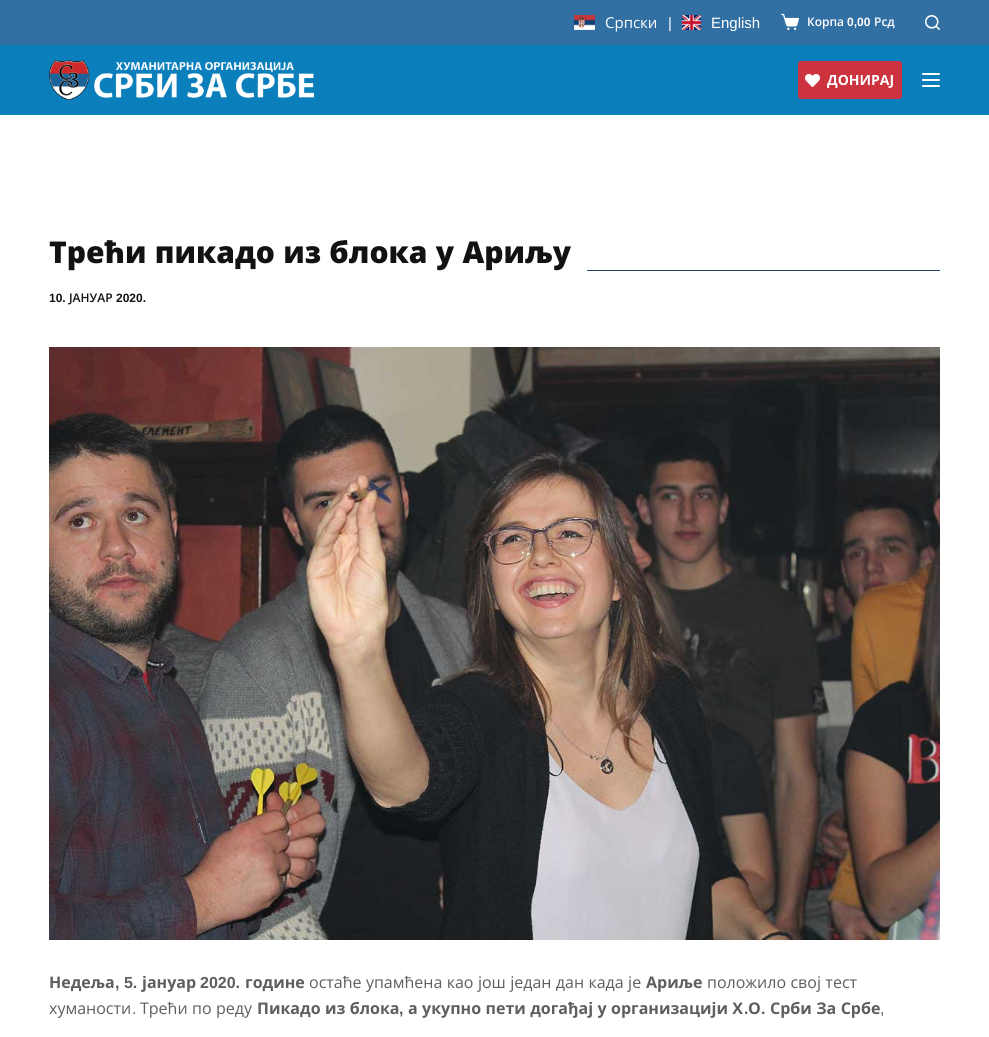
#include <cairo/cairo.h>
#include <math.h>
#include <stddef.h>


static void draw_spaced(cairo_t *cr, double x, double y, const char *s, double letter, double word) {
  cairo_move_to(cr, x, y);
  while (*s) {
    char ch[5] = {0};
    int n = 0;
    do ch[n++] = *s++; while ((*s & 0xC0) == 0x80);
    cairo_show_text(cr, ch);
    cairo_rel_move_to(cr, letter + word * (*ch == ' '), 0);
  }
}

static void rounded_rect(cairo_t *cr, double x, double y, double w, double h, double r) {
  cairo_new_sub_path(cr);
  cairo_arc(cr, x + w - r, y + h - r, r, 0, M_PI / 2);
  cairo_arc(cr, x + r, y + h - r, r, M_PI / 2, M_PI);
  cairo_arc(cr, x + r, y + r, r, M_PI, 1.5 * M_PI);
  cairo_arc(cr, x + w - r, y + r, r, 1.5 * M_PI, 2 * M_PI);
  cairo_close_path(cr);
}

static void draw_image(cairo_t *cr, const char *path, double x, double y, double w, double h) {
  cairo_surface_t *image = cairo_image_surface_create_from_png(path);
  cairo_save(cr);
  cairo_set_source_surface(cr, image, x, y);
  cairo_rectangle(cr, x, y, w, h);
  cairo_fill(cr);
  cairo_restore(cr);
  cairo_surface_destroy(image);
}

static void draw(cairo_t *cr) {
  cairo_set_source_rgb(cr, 1, 1, 1);
  cairo_paint(cr);
  cairo_set_source_rgb(cr, 50 / 255.0, 112 / 255.0, 163 / 255.0);
  cairo_rectangle(cr, 0, 0, 989, 45);
  cairo_fill(cr);
  draw_image(cr, "images/1.png", 574, 15, 21, 15);
  draw_image(cr, "images/2.png", 682, 15, 19, 15);
  draw_image(cr, "images/3.png", 781, 13, 18, 17);
  draw_image(cr, "images/4.png", 925, 15, 15, 15);
  cairo_set_source_rgb(cr, 11 / 255.0, 127 / 255.0, 187 / 255.0);
  cairo_rectangle(cr, 0, 45, 989, 70);
  cairo_fill(cr);
  draw_image(cr, "images/5.png", 49, 60, 265, 40);
  cairo_set_source_rgb(cr, 204 / 255.0, 51 / 255.0, 63 / 255.0);
  rounded_rect(cr, 798, 61, 104, 38, 3);
  cairo_fill(cr);
  draw_image(cr, "images/6.png", 805, 74, 15, 13);
  cairo_set_source_rgb(cr, 1, 1, 1);
  rounded_rect(cr, 922, 73, 18, 2, 1);
  cairo_fill(cr);
  rounded_rect(cr, 922, 79, 18, 2, 1);
  cairo_fill(cr);
  rounded_rect(cr, 922, 85, 18, 2, 1);
  cairo_fill(cr);
  cairo_set_source_rgb(cr, 33 / 255.0, 67 / 255.0, 104 / 255.0);
  cairo_rectangle(cr, 587, 270, 353, 1);
  cairo_fill(cr);
  draw_image(cr, "images/7.png", 49, 347, 891, 593);
  cairo_select_font_face(cr, "Open Sans", CAIRO_FONT_SLANT_NORMAL, CAIRO_FONT_WEIGHT_NORMAL);
  cairo_set_font_size(cr, 15);
  cairo_set_source_rgb(cr, 1, 1, 1);
  cairo_move_to(cr, 605, 28);
  cairo_show_text(cr, "Српски");
  cairo_select_font_face(cr, "Liberation Sans", CAIRO_FONT_SLANT_NORMAL, CAIRO_FONT_WEIGHT_NORMAL);
  cairo_move_to(cr, 668, 28);
  cairo_show_text(cr, "|");
  cairo_move_to(cr, 711, 28);
  cairo_show_text(cr, "English");
  cairo_select_font_face(cr, "Open Sans SemiBold", CAIRO_FONT_SLANT_NORMAL, CAIRO_FONT_WEIGHT_NORMAL);
  cairo_set_font_size(cr, 12);
  cairo_move_to(cr, 807, 26);
  cairo_show_text(cr, "Корпа");
  cairo_select_font_face(cr, "Liberation Sans", CAIRO_FONT_SLANT_NORMAL, CAIRO_FONT_WEIGHT_BOLD);
  cairo_move_to(cr, 847, 26);
  cairo_show_text(cr, "0,00");
  cairo_select_font_face(cr, "Open Sans SemiBold", CAIRO_FONT_SLANT_NORMAL, CAIRO_FONT_WEIGHT_NORMAL);
  cairo_move_to(cr, 874, 26);
  cairo_show_text(cr, "Рсд");
  cairo_select_font_face(cr, "Open Sans", CAIRO_FONT_SLANT_NORMAL, CAIRO_FONT_WEIGHT_BOLD);
  cairo_set_font_size(cr, 14);
  cairo_move_to(cr, 827, 85);
  cairo_show_text(cr, "ДОНИРАЈ");
  cairo_select_font_face(cr, "Open Sans ExtraBold", CAIRO_FONT_SLANT_NORMAL, CAIRO_FONT_WEIGHT_NORMAL);
  cairo_set_font_size(cr, 30);
  cairo_set_source_rgb(cr, 18 / 255.0, 18 / 255.0, 18 / 255.0);
  draw_spaced(cr, 49, 263, "Трећи пикадо из блока у Ариљу", 0, 0.5);
  cairo_select_font_face(cr, "Liberation Sans", CAIRO_FONT_SLANT_NORMAL, CAIRO_FONT_WEIGHT_BOLD);
  cairo_set_font_size(cr, 12);
  cairo_move_to(cr, 49, 302);
  cairo_show_text(cr, "10.");
  cairo_select_font_face(cr, "Open Sans SemiBold", CAIRO_FONT_SLANT_NORMAL, CAIRO_FONT_WEIGHT_NORMAL);
  cairo_move_to(cr, 69, 302);
  cairo_show_text(cr, "ЈАНУАР");
  cairo_select_font_face(cr, "Liberation Sans", CAIRO_FONT_SLANT_NORMAL, CAIRO_FONT_WEIGHT_BOLD);
  cairo_move_to(cr, 116, 302);
  cairo_show_text(cr, "2020.");
  cairo_select_font_face(cr, "Open Sans", CAIRO_FONT_SLANT_NORMAL, CAIRO_FONT_WEIGHT_BOLD);
  cairo_set_font_size(cr, 16);
  cairo_set_source_rgb(cr, 94 / 255.0, 94 / 255.0, 94 / 255.0);
  cairo_move_to(cr, 49, 988);
  cairo_show_text(cr, "Недеља");
  cairo_select_font_face(cr, "Liberation Sans", CAIRO_FONT_SLANT_NORMAL, CAIRO_FONT_WEIGHT_BOLD);
  cairo_move_to(cr, 115, 988);
  cairo_show_text(cr, ", 5.");
  cairo_select_font_face(cr, "Open Sans", CAIRO_FONT_SLANT_NORMAL, CAIRO_FONT_WEIGHT_BOLD);
  cairo_move_to(cr, 142, 988);
  cairo_show_text(cr, "јануар");
  cairo_select_font_face(cr, "Liberation Sans", CAIRO_FONT_SLANT_NORMAL, CAIRO_FONT_WEIGHT_BOLD);
  cairo_move_to(cr, 200, 988);
  cairo_show_text(cr, "2020.");
  cairo_select_font_face(cr, "Open Sans", CAIRO_FONT_SLANT_NORMAL, CAIRO_FONT_WEIGHT_BOLD);
  cairo_move_to(cr, 245, 988);
  cairo_show_text(cr, "године");
  cairo_select_font_face(cr, "Open Sans", CAIRO_FONT_SLANT_NORMAL, CAIRO_FONT_WEIGHT_NORMAL);
  draw_spaced(cr, 309, 988, "остаће упамћена као још један дан када је", 0, 0.25);
  cairo_select_font_face(cr, "Open Sans", CAIRO_FONT_SLANT_NORMAL, CAIRO_FONT_WEIGHT_BOLD);
  cairo_move_to(cr, 646, 988);
  cairo_show_text(cr, "Ариље");
  cairo_select_font_face(cr, "Open Sans", CAIRO_FONT_SLANT_NORMAL, CAIRO_FONT_WEIGHT_NORMAL);
  draw_spaced(cr, 707, 988, "положило свој тест", 0, 0.25);
  cairo_move_to(cr, 49, 1014);
  cairo_show_text(cr, "хуманости");
  cairo_select_font_face(cr, "Liberation Sans", CAIRO_FONT_SLANT_NORMAL, CAIRO_FONT_WEIGHT_NORMAL);
  cairo_move_to(cr, 132, 1014);
  cairo_show_text(cr, ".");
  cairo_select_font_face(cr, "Open Sans", CAIRO_FONT_SLANT_NORMAL, CAIRO_FONT_WEIGHT_NORMAL);
  draw_spaced(cr, 140, 1014, "Трећи по реду", 0, 0.25);
  cairo_select_font_face(cr, "Open Sans", CAIRO_FONT_SLANT_NORMAL, CAIRO_FONT_WEIGHT_BOLD);
  draw_spaced(cr, 257, 1014, "Пикадо из блока", 0, 0.25);
  cairo_select_font_face(cr, "Liberation Sans", CAIRO_FONT_SLANT_NORMAL, CAIRO_FONT_WEIGHT_BOLD);
  cairo_move_to(cr, 399, 1014);
  cairo_show_text(cr, ",");
  cairo_select_font_face(cr, "Open Sans", CAIRO_FONT_SLANT_NORMAL, CAIRO_FONT_WEIGHT_BOLD);
  draw_spaced(cr, 408, 1014, "а укупно пети догађај у организацији Х", 0, 0.25);
  cairo_select_font_face(cr, "Liberation Sans", CAIRO_FONT_SLANT_NORMAL, CAIRO_FONT_WEIGHT_BOLD);
  cairo_move_to(cr, 744, 1014);
  cairo_show_text(cr, ".");
  cairo_select_font_face(cr, "Open Sans", CAIRO_FONT_SLANT_NORMAL, CAIRO_FONT_WEIGHT_BOLD);
  cairo_move_to(cr, 748, 1014);
  cairo_show_text(cr, "О");
  cairo_select_font_face(cr, "Liberation Sans", CAIRO_FONT_SLANT_NORMAL, CAIRO_FONT_WEIGHT_BOLD);
  cairo_move_to(cr, 761, 1014);
  cairo_show_text(cr, ".");
  cairo_select_font_face(cr, "Open Sans", CAIRO_FONT_SLANT_NORMAL, CAIRO_FONT_WEIGHT_BOLD);
  draw_spaced(cr, 770, 1014, "Срби За Србе", 0, 0.25);
  cairo_select_font_face(cr, "Liberation Sans", CAIRO_FONT_SLANT_NORMAL, CAIRO_FONT_WEIGHT_NORMAL);
  cairo_move_to(cr, 880, 1014);
  cairo_show_text(cr, ",");
}

int main(void) {
  cairo_surface_t *surface = cairo_image_surface_create(CAIRO_FORMAT_RGB24, 989, 1037);
  cairo_t *cr = cairo_create(surface);
  cairo_font_options_t *options = cairo_font_options_create();
  cairo_font_options_set_hint_metrics(options, CAIRO_HINT_METRICS_OFF);
  cairo_font_options_set_hint_style(options, CAIRO_HINT_STYLE_NONE);
  cairo_set_font_options(cr, options);
  cairo_set_miter_limit(cr, 4);
  draw(cr);
  cairo_surface_write_to_png(surface, "out.png");
  cairo_font_options_destroy(options);
  cairo_destroy(cr);
  cairo_surface_destroy(surface);
  return 0;
}
